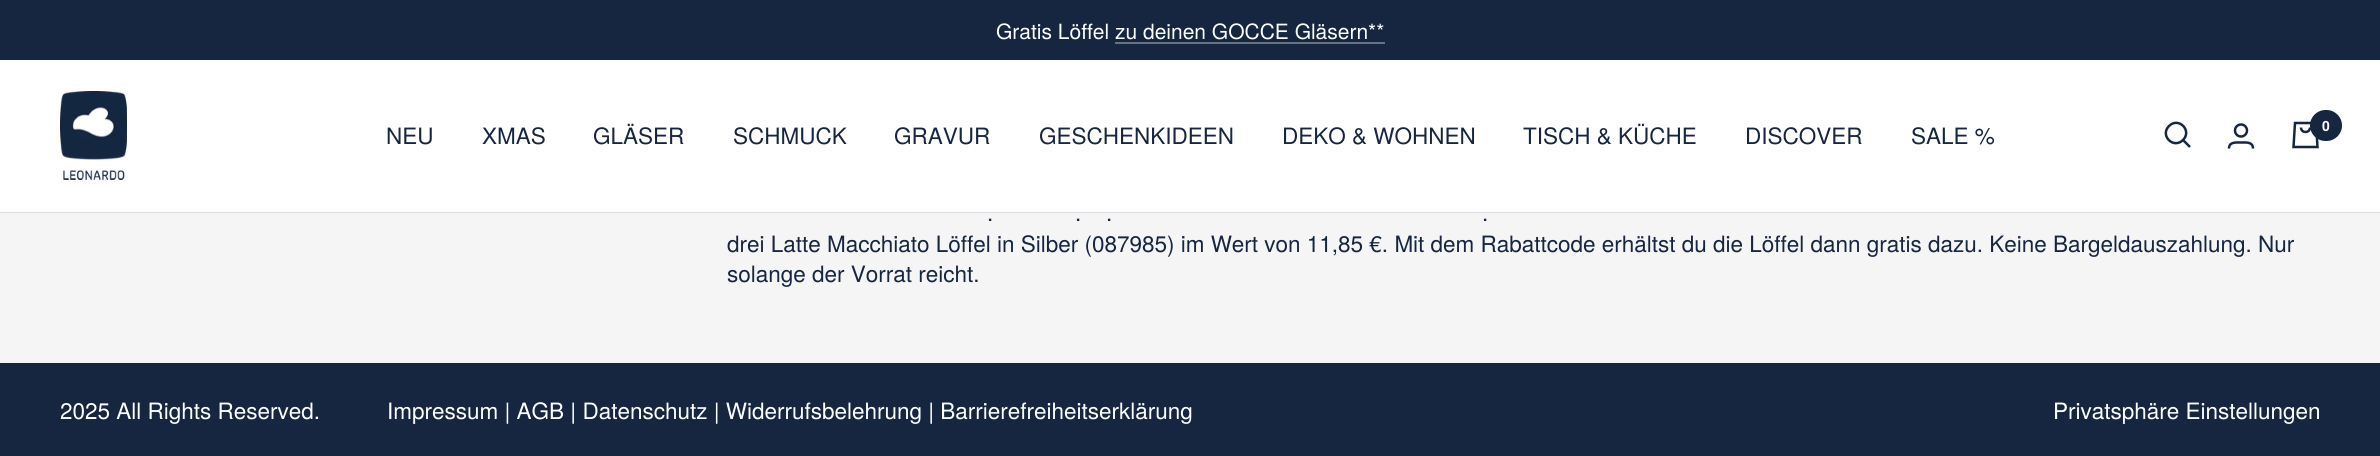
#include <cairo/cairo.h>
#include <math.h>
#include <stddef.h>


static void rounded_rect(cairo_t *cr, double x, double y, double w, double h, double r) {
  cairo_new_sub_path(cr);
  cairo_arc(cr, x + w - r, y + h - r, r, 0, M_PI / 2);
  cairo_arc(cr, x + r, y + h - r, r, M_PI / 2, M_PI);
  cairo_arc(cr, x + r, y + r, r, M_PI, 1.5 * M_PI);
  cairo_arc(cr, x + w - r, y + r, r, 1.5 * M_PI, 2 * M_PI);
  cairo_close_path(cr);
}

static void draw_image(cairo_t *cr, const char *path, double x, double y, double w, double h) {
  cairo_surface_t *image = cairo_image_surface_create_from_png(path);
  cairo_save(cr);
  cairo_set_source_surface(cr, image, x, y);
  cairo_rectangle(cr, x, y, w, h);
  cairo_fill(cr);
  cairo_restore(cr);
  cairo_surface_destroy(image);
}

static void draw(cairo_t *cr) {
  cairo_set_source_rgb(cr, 245 / 255.0, 245 / 255.0, 245 / 255.0);
  cairo_paint(cr);
  cairo_set_source_rgb(cr, 22 / 255.0, 38 / 255.0, 64 / 255.0);
  cairo_rectangle(cr, 0, 0, 2380, 60);
  cairo_fill(cr);
  cairo_set_source_rgb(cr, 104 / 255.0, 114 / 255.0, 131 / 255.0);
  cairo_rectangle(cr, 1115, 42, 270, 2);
  cairo_fill(cr);
  cairo_set_source_rgb(cr, 220 / 255.0, 222 / 255.0, 226 / 255.0);
  cairo_new_path(cr);
  cairo_move_to(cr, 0, 212);
  cairo_line_to(cr, 0, 213);
  cairo_line_to(cr, 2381, 213);
  cairo_line_to(cr, 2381, 62);
  cairo_line_to(cr, 2380, 62);
  cairo_line_to(cr, 2380, 212);
  cairo_close_path(cr);
  cairo_fill(cr);
  cairo_set_source_rgb(cr, 1, 1, 1);
  cairo_rectangle(cr, 0, 60, 2380, 152);
  cairo_fill(cr);
  draw_image(cr, "images/1.png", 60, 91, 67, 89);
  cairo_new_path(cr);
  cairo_move_to(cr, 2183, 140);
  cairo_curve_to(cr, 2192.5, 130.5, 2178.5, 116.5, 2169, 126);
  cairo_curve_to(cr, 2159.5, 135.5, 2173.5, 149.5, 2183, 140);
  cairo_close_path(cr);
  cairo_move_to(cr, 2183, 140);
  cairo_line_to(cr, 2190, 147);
  cairo_set_source_rgb(cr, 22 / 255.0, 38 / 255.0, 64 / 255.0);
  cairo_set_line_width(cr, 2.5);
  cairo_stroke(cr);
  cairo_arc(cr, 2241, 130.5, 6, 0, 2 * M_PI);
  cairo_stroke(cr);
  cairo_new_path(cr);
  cairo_move_to(cr, 2229, 148.5);
  cairo_curve_to(cr, 2229, 141.5, 2236.5, 142.5, 2241, 142.5);
  cairo_curve_to(cr, 2245.5, 142.5, 2253, 141.5, 2253, 148.5);
  cairo_stroke(cr);
  cairo_new_path(cr);
  cairo_move_to(cr, 2295, 123);
  cairo_line_to(cr, 2316, 123);
  cairo_line_to(cr, 2317.5, 147);
  cairo_line_to(cr, 2293.5, 147);
  cairo_close_path(cr);
  cairo_move_to(cr, 2301, 127.5);
  cairo_curve_to(cr, 2301, 133.5, 2310, 133.5, 2310, 127.5);
  cairo_stroke(cr);
  rounded_rect(cr, 2310, 110, 32, 31, 15.5);
  cairo_fill(cr);
  cairo_rectangle(cr, 0, 363, 2380, 93);
  cairo_fill(cr);
  cairo_select_font_face(cr, "TeX Gyre Heros", CAIRO_FONT_SLANT_NORMAL, CAIRO_FONT_WEIGHT_NORMAL);
  cairo_set_font_size(cr, 21);
  cairo_set_source_rgb(cr, 1, 1, 1);
  cairo_move_to(cr, 996, 39);
  cairo_show_text(cr, "Gratis Löffel zu deinen GOCCE Gläsern**");
  cairo_set_font_size(cr, 22.5);
  cairo_set_source_rgb(cr, 22 / 255.0, 38 / 255.0, 64 / 255.0);
  cairo_move_to(cr, 386, 144);
  cairo_show_text(cr, "NEU");
  cairo_move_to(cr, 482, 144);
  cairo_show_text(cr, "XMAS");
  cairo_move_to(cr, 593, 144);
  cairo_show_text(cr, "GLÄSER");
  cairo_move_to(cr, 733, 144);
  cairo_show_text(cr, "SCHMUCK");
  cairo_move_to(cr, 894, 144);
  cairo_show_text(cr, "GRAVUR");
  cairo_move_to(cr, 1039, 144);
  cairo_show_text(cr, "GESCHENKIDEEN");
  cairo_move_to(cr, 1282, 144);
  cairo_show_text(cr, "DEKO & WOHNEN");
  cairo_move_to(cr, 1523, 144);
  cairo_show_text(cr, "TISCH & KÜCHE");
  cairo_move_to(cr, 1745, 144);
  cairo_show_text(cr, "DISCOVER");
  cairo_move_to(cr, 1911, 144);
  cairo_show_text(cr, "SALE %");
  cairo_select_font_face(cr, "TeX Gyre Heros", CAIRO_FONT_SLANT_NORMAL, CAIRO_FONT_WEIGHT_BOLD);
  cairo_set_font_size(cr, 14);
  cairo_set_source_rgb(cr, 1, 1, 1);
  cairo_move_to(cr, 2322, 131);
  cairo_show_text(cr, "0");
  cairo_select_font_face(cr, "TeX Gyre Heros", CAIRO_FONT_SLANT_NORMAL, CAIRO_FONT_WEIGHT_NORMAL);
  cairo_set_font_size(cr, 22.5);
  cairo_set_source_rgb(cr, 22 / 255.0, 38 / 255.0, 64 / 255.0);
  cairo_move_to(cr, 987, 221);
  cairo_show_text(cr, ".");
  cairo_move_to(cr, 1075, 221);
  cairo_show_text(cr, ".");
  cairo_move_to(cr, 1106, 221);
  cairo_show_text(cr, ".");
  cairo_move_to(cr, 1482, 221);
  cairo_show_text(cr, ".");
  cairo_move_to(cr, 727, 252);
  cairo_show_text(cr, "drei Latte Macchiato Löffel in Silber (087985) im Wert von 11,85 €. Mit dem Rabattcode erhältst du die Löffel dann gratis dazu. Keine Bargeldauszahlung. Nur");
  cairo_move_to(cr, 727, 282);
  cairo_show_text(cr, "solange der Vorrat reicht.");
  cairo_set_source_rgb(cr, 1, 1, 1);
  cairo_move_to(cr, 60, 419);
  cairo_show_text(cr, "2025 All Rights Reserved.");
  cairo_move_to(cr, 387, 419);
  cairo_show_text(cr, "Impressum | AGB | Datenschutz | Widerrufsbelehrung | Barrierefreiheitserklärung");
  cairo_move_to(cr, 2053, 419);
  cairo_show_text(cr, "Privatsphäre Einstellungen");
}

int main(void) {
  cairo_surface_t *surface = cairo_image_surface_create(CAIRO_FORMAT_RGB24, 2380, 456);
  cairo_t *cr = cairo_create(surface);
  cairo_font_options_t *options = cairo_font_options_create();
  cairo_font_options_set_hint_metrics(options, CAIRO_HINT_METRICS_OFF);
  cairo_font_options_set_hint_style(options, CAIRO_HINT_STYLE_NONE);
  cairo_set_font_options(cr, options);
  cairo_set_miter_limit(cr, 4);
  draw(cr);
  cairo_surface_write_to_png(surface, "out.png");
  cairo_font_options_destroy(options);
  cairo_destroy(cr);
  cairo_surface_destroy(surface);
  return 0;
}
